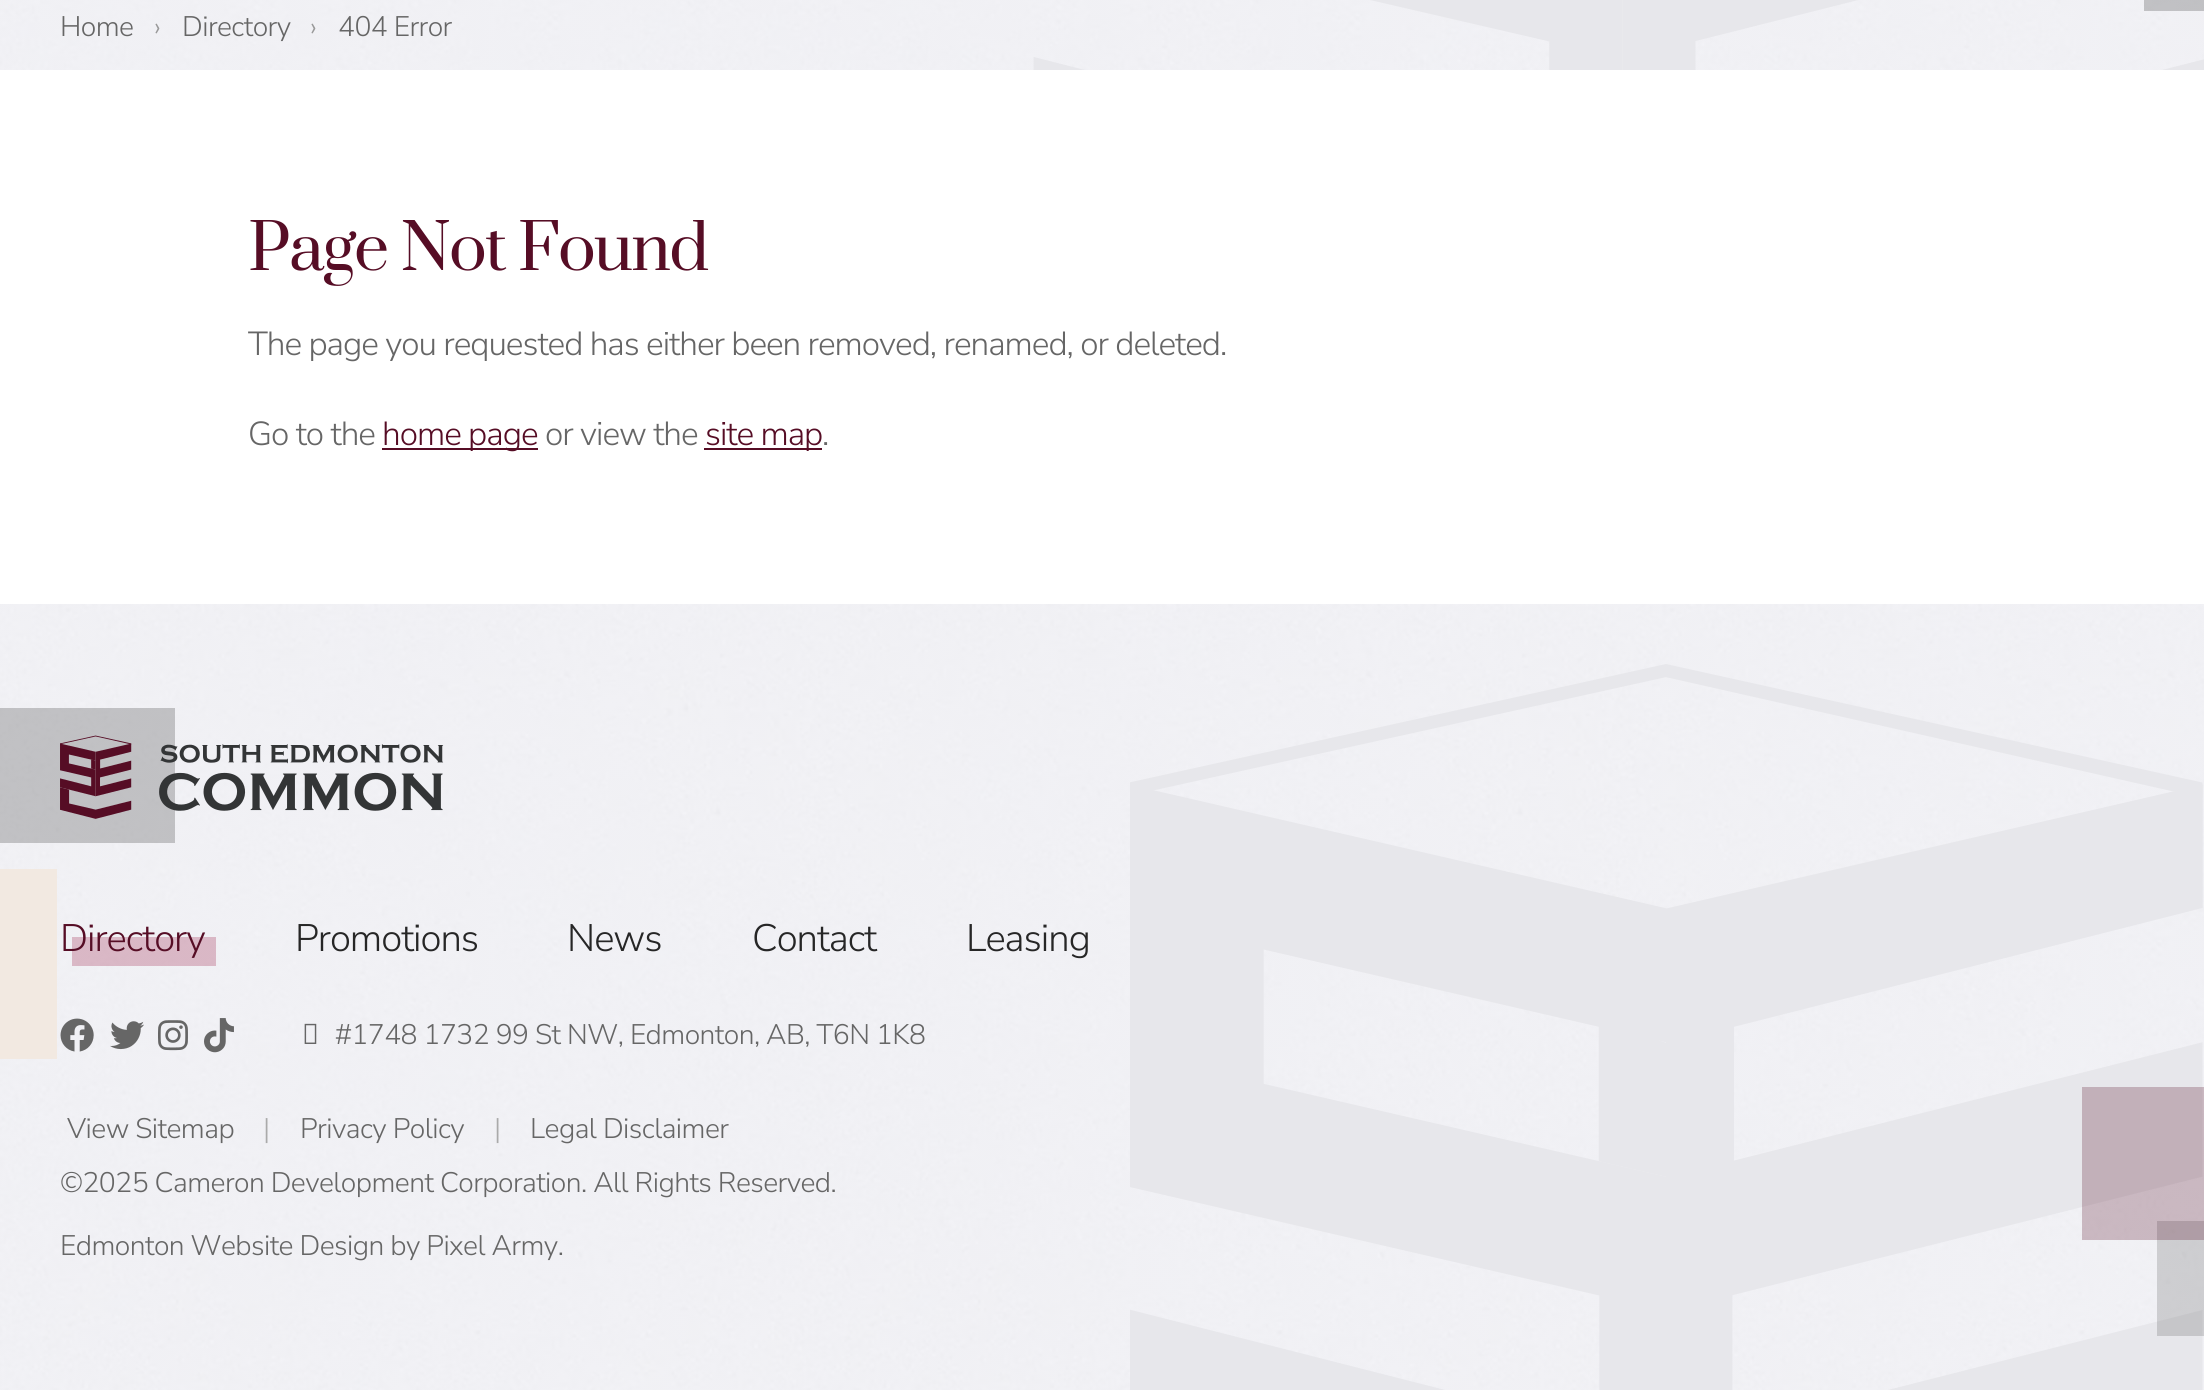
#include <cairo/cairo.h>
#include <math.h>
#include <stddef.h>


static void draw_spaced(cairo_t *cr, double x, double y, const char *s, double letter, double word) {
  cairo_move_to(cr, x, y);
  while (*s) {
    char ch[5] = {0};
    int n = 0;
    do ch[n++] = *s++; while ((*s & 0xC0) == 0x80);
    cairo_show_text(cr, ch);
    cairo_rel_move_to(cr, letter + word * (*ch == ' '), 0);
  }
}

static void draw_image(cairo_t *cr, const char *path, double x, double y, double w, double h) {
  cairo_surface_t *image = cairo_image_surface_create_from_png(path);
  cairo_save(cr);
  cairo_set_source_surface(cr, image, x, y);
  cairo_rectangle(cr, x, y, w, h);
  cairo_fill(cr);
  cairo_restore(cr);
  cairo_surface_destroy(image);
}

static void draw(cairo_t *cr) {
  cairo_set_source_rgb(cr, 1, 1, 1);
  cairo_paint(cr);
  draw_image(cr, "images/1.png", 0, 0, 2204, 70);
  draw_image(cr, "images/2.png", 1033, 0, 1171, 70);
  cairo_set_source_rgba(cr, 51 / 255.0, 51 / 255.0, 51 / 255.0, 0.25);
  cairo_rectangle(cr, 2144, 0, 60, 11);
  cairo_fill(cr);
  cairo_set_source_rgb(cr, 86 / 255.0, 13 / 255.0, 37 / 255.0);
  cairo_rectangle(cr, 382, 448, 156, 2);
  cairo_fill(cr);
  cairo_rectangle(cr, 704, 448, 118, 2);
  cairo_fill(cr);
  draw_image(cr, "images/3.png", 0, 604, 2204, 786);
  draw_image(cr, "images/4.png", 1130, 664, 1073, 726);
  cairo_set_source_rgba(cr, 102 / 255.0, 102 / 255.0, 102 / 255.0, 0.25);
  cairo_rectangle(cr, 2157, 1221, 47, 115);
  cairo_fill(cr);
  cairo_set_source_rgba(cr, 86 / 255.0, 13 / 255.0, 37 / 255.0, 0.25);
  cairo_rectangle(cr, 2082, 1087, 122, 153);
  cairo_fill(cr);
  cairo_set_source_rgb(cr, 242 / 255.0, 233 / 255.0, 225 / 255.0);
  cairo_rectangle(cr, 0, 869, 57, 190);
  cairo_fill(cr);
  cairo_set_source_rgba(cr, 51 / 255.0, 51 / 255.0, 51 / 255.0, 0.25);
  cairo_rectangle(cr, 0, 708, 175, 135);
  cairo_fill(cr);
  draw_image(cr, "images/5.png", 60, 735, 384, 84);
  draw_image(cr, "images/6.png", 60, 1018, 34, 34);
  draw_image(cr, "images/7.png", 110, 1021, 34, 29);
  draw_image(cr, "images/8.png", 158, 1020, 30, 31);
  draw_image(cr, "images/9.png", 204, 1018, 30, 35);
  draw_image(cr, "images/10.png", 304, 1023, 13, 21);
  cairo_select_font_face(cr, "Nunito Sans Light", CAIRO_FONT_SLANT_NORMAL, CAIRO_FONT_WEIGHT_NORMAL);
  cairo_set_font_size(cr, 28.25);
  cairo_set_source_rgb(cr, 102 / 255.0, 102 / 255.0, 102 / 255.0);
  draw_spaced(cr, 60, 36, "Home", -0.55, 0);
  cairo_set_source_rgb(cr, 153 / 255.0, 153 / 255.0, 153 / 255.0);
  draw_spaced(cr, 154, 36, "›", -0.55, 0);
  cairo_set_source_rgb(cr, 102 / 255.0, 102 / 255.0, 102 / 255.0);
  draw_spaced(cr, 182, 36, "Directory", -0.55, 0);
  cairo_set_source_rgb(cr, 153 / 255.0, 153 / 255.0, 153 / 255.0);
  draw_spaced(cr, 310, 36, "›", -0.55, 0);
  cairo_set_source_rgb(cr, 102 / 255.0, 102 / 255.0, 102 / 255.0);
  draw_spaced(cr, 338, 36, "404 Error", -0.55, 0);
  cairo_select_font_face(cr, "Prata", CAIRO_FONT_SLANT_NORMAL, CAIRO_FONT_WEIGHT_NORMAL);
  cairo_set_font_size(cr, 62.5);
  cairo_set_source_rgb(cr, 86 / 255.0, 13 / 255.0, 37 / 255.0);
  draw_spaced(cr, 248, 270, "Page Not Found", -1.9, 0);
  cairo_select_font_face(cr, "Nunito Sans Light", CAIRO_FONT_SLANT_NORMAL, CAIRO_FONT_WEIGHT_NORMAL);
  cairo_set_font_size(cr, 33.35);
  cairo_set_source_rgb(cr, 102 / 255.0, 102 / 255.0, 102 / 255.0);
  draw_spaced(cr, 248, 355, "The page you requested has either been removed, renamed, or deleted.", -1, 0);
  draw_spaced(cr, 248, 445, "Go to the", -1, 0);
  cairo_set_source_rgb(cr, 86 / 255.0, 13 / 255.0, 37 / 255.0);
  draw_spaced(cr, 382, 445, "home page", -1, 0);
  cairo_set_source_rgb(cr, 102 / 255.0, 102 / 255.0, 102 / 255.0);
  draw_spaced(cr, 545, 445, "or view the", -1, 0);
  cairo_set_source_rgb(cr, 86 / 255.0, 13 / 255.0, 37 / 255.0);
  draw_spaced(cr, 705, 445, "site map", -1, 0);
  cairo_set_source_rgb(cr, 102 / 255.0, 102 / 255.0, 102 / 255.0);
  draw_spaced(cr, 822, 445, ".", -1, 0);
  cairo_set_font_size(cr, 38.25);
  cairo_set_source_rgb(cr, 86 / 255.0, 13 / 255.0, 37 / 255.0);
  draw_spaced(cr, 60, 951, "Directory", -1, 0);
  cairo_set_source_rgb(cr, 38 / 255.0, 38 / 255.0, 38 / 255.0);
  draw_spaced(cr, 295, 951, "Promotions", -1, 0);
  draw_spaced(cr, 567, 951, "News", -1, 0);
  draw_spaced(cr, 752, 951, "Contact", -1, 0);
  draw_spaced(cr, 966, 951, "Leasing", -1, 0);
  cairo_set_font_size(cr, 28.25);
  cairo_set_source_rgb(cr, 102 / 255.0, 102 / 255.0, 102 / 255.0);
  draw_spaced(cr, 335, 1044, "#1748 1732 99 St NW, Edmonton, AB, T6N 1K8", -0.55, 0);
  draw_spaced(cr, 67, 1138, "View Sitemap", -0.55, 0);
  cairo_set_source_rgb(cr, 170 / 255.0, 170 / 255.0, 170 / 255.0);
  draw_spaced(cr, 263, 1138, "|", -0.55, 0);
  cairo_set_source_rgb(cr, 102 / 255.0, 102 / 255.0, 102 / 255.0);
  draw_spaced(cr, 300, 1138, "Privacy Policy", -0.55, 0);
  cairo_set_source_rgb(cr, 170 / 255.0, 170 / 255.0, 170 / 255.0);
  draw_spaced(cr, 494, 1138, "|", -0.55, 0);
  cairo_set_source_rgb(cr, 102 / 255.0, 102 / 255.0, 102 / 255.0);
  draw_spaced(cr, 530, 1138, "Legal Disclaimer", -0.55, 0);
  draw_spaced(cr, 60, 1192, "©2025 Cameron Development Corporation. All Rights Reserved.", -0.55, 0);
  draw_spaced(cr, 60, 1255, "Edmonton Website Design by Pixel Army.", -0.55, 0);
}

int main(void) {
  cairo_surface_t *surface = cairo_image_surface_create(CAIRO_FORMAT_RGB24, 2204, 1390);
  cairo_t *cr = cairo_create(surface);
  cairo_font_options_t *options = cairo_font_options_create();
  cairo_font_options_set_hint_metrics(options, CAIRO_HINT_METRICS_OFF);
  cairo_font_options_set_hint_style(options, CAIRO_HINT_STYLE_NONE);
  cairo_set_font_options(cr, options);
  cairo_set_miter_limit(cr, 4);
  draw(cr);
  cairo_surface_write_to_png(surface, "out.png");
  cairo_font_options_destroy(options);
  cairo_destroy(cr);
  cairo_surface_destroy(surface);
  return 0;
}
